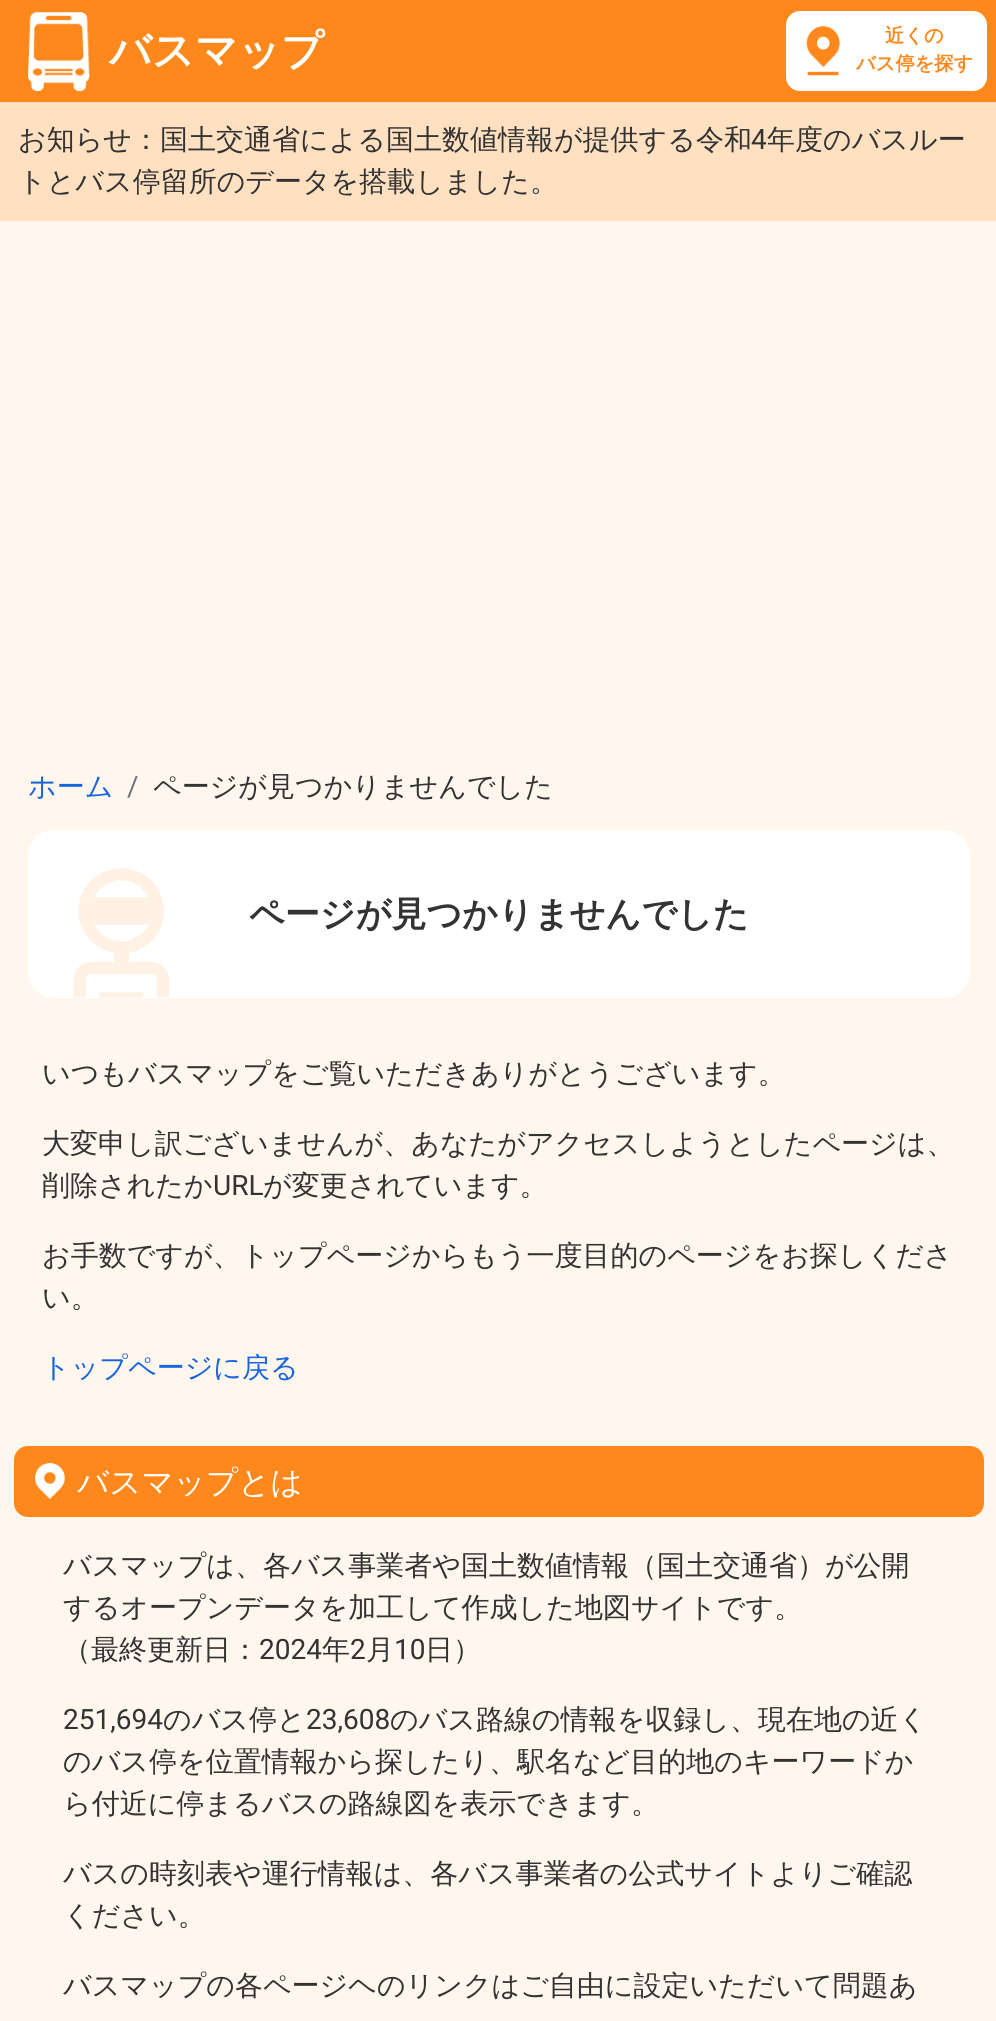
#include <cairo/cairo.h>
#include <math.h>
#include <stddef.h>


static void rounded_rect(cairo_t *cr, double x, double y, double w, double h, double r) {
  cairo_new_sub_path(cr);
  cairo_arc(cr, x + w - r, y + h - r, r, 0, M_PI / 2);
  cairo_arc(cr, x + r, y + h - r, r, M_PI / 2, M_PI);
  cairo_arc(cr, x + r, y + r, r, M_PI, 1.5 * M_PI);
  cairo_arc(cr, x + w - r, y + r, r, 1.5 * M_PI, 2 * M_PI);
  cairo_close_path(cr);
}

static void draw_image(cairo_t *cr, const char *path, double x, double y, double w, double h) {
  cairo_surface_t *image = cairo_image_surface_create_from_png(path);
  cairo_save(cr);
  cairo_set_source_surface(cr, image, x, y);
  cairo_rectangle(cr, x, y, w, h);
  cairo_fill(cr);
  cairo_restore(cr);
  cairo_surface_destroy(image);
}

static void draw(cairo_t *cr) {
  cairo_set_source_rgb(cr, 1, 246 / 255.0, 237 / 255.0);
  cairo_paint(cr);
  cairo_set_source_rgb(cr, 254 / 255.0, 136 / 255.0, 28 / 255.0);
  cairo_rectangle(cr, 0, 0, 996, 102);
  cairo_fill(cr);
  draw_image(cr, "images/1.png", 28, 12, 62, 79);
  cairo_set_source_rgb(cr, 1, 1, 1);
  rounded_rect(cr, 786, 11, 201, 80, 14);
  cairo_fill(cr);
  draw_image(cr, "images/2.png", 806, 26, 34, 50);
  cairo_set_source_rgb(cr, 1, 224 / 255.0, 193 / 255.0);
  cairo_rectangle(cr, 0, 102, 996, 119);
  cairo_fill(cr);
  cairo_set_source_rgb(cr, 1, 1, 1);
  rounded_rect(cr, 28, 830, 942, 168, 26);
  cairo_fill(cr);
  draw_image(cr, "images/3.png", 73, 868, 96, 130);
  cairo_set_source_rgb(cr, 254 / 255.0, 136 / 255.0, 28 / 255.0);
  rounded_rect(cr, 14, 1446, 970, 71, 14);
  cairo_fill(cr);
  draw_image(cr, "images/4.png", 35, 1463, 30, 36);
  cairo_select_font_face(cr, "WenQuanYi Zen Hei", CAIRO_FONT_SLANT_NORMAL, CAIRO_FONT_WEIGHT_BOLD);
  cairo_set_font_size(cr, 42);
  cairo_set_source_rgb(cr, 1, 1, 1);
  cairo_move_to(cr, 109, 65);
  cairo_show_text(cr, "バスマップ");
  cairo_set_font_size(cr, 19.25);
  cairo_set_source_rgb(cr, 254 / 255.0, 136 / 255.0, 28 / 255.0);
  cairo_move_to(cr, 885, 42);
  cairo_show_text(cr, "近くの");
  cairo_move_to(cr, 856, 70);
  cairo_show_text(cr, "バス停を探す");
  cairo_select_font_face(cr, "WenQuanYi Zen Hei Medium", CAIRO_FONT_SLANT_NORMAL, CAIRO_FONT_WEIGHT_NORMAL);
  cairo_set_font_size(cr, 28);
  cairo_set_source_rgb(cr, 51 / 255.0, 51 / 255.0, 51 / 255.0);
  cairo_move_to(cr, 18, 149);
  cairo_show_text(cr, "お知らせ：国土交通省による国土数値情報が提供する令和");
  cairo_select_font_face(cr, "Roboto", CAIRO_FONT_SLANT_NORMAL, CAIRO_FONT_WEIGHT_NORMAL);
  cairo_move_to(cr, 751, 149);
  cairo_show_text(cr, "4");
  cairo_select_font_face(cr, "WenQuanYi Zen Hei Medium", CAIRO_FONT_SLANT_NORMAL, CAIRO_FONT_WEIGHT_NORMAL);
  cairo_move_to(cr, 767, 149);
  cairo_show_text(cr, "年度のバスルー");
  cairo_move_to(cr, 18, 191);
  cairo_show_text(cr, "トとバス停留所のデータを搭載しました。");
  cairo_set_source_rgb(cr, 25 / 255.0, 100 / 255.0, 220 / 255.0);
  cairo_move_to(cr, 28, 796);
  cairo_show_text(cr, "ホーム");
  cairo_select_font_face(cr, "Roboto", CAIRO_FONT_SLANT_NORMAL, CAIRO_FONT_WEIGHT_NORMAL);
  cairo_set_source_rgb(cr, 108 / 255.0, 117 / 255.0, 125 / 255.0);
  cairo_move_to(cr, 127, 796);
  cairo_show_text(cr, "/");
  cairo_select_font_face(cr, "WenQuanYi Zen Hei Medium", CAIRO_FONT_SLANT_NORMAL, CAIRO_FONT_WEIGHT_NORMAL);
  cairo_set_source_rgb(cr, 51 / 255.0, 51 / 255.0, 51 / 255.0);
  cairo_move_to(cr, 153, 796);
  cairo_show_text(cr, "ページが見つかりませんでした");
  cairo_select_font_face(cr, "WenQuanYi Zen Hei", CAIRO_FONT_SLANT_NORMAL, CAIRO_FONT_WEIGHT_BOLD);
  cairo_set_font_size(cr, 35);
  cairo_move_to(cr, 249, 926);
  cairo_show_text(cr, "ページが見つかりませんでした");
  cairo_select_font_face(cr, "WenQuanYi Zen Hei Medium", CAIRO_FONT_SLANT_NORMAL, CAIRO_FONT_WEIGHT_NORMAL);
  cairo_set_font_size(cr, 28);
  cairo_move_to(cr, 42, 1083);
  cairo_show_text(cr, "いつもバスマップをご覧いただきありがとうございます。");
  cairo_move_to(cr, 42, 1153);
  cairo_show_text(cr, "大変申し訳ございませんが、あなたがアクセスしようとしたページは、");
  cairo_move_to(cr, 42, 1195);
  cairo_show_text(cr, "削除されたか");
  cairo_select_font_face(cr, "Roboto", CAIRO_FONT_SLANT_NORMAL, CAIRO_FONT_WEIGHT_NORMAL);
  cairo_move_to(cr, 213, 1195);
  cairo_show_text(cr, "URL");
  cairo_select_font_face(cr, "WenQuanYi Zen Hei Medium", CAIRO_FONT_SLANT_NORMAL, CAIRO_FONT_WEIGHT_NORMAL);
  cairo_move_to(cr, 263, 1195);
  cairo_show_text(cr, "が変更されています。");
  cairo_move_to(cr, 42, 1265);
  cairo_show_text(cr, "お手数ですが、トップページからもう一度目的のページをお探しくださ");
  cairo_move_to(cr, 42, 1307);
  cairo_show_text(cr, "い。");
  cairo_set_source_rgb(cr, 25 / 255.0, 100 / 255.0, 220 / 255.0);
  cairo_move_to(cr, 42, 1377);
  cairo_show_text(cr, "トップページに戻る");
  cairo_set_font_size(cr, 31.5);
  cairo_set_source_rgb(cr, 1, 1, 1);
  cairo_move_to(cr, 77, 1493);
  cairo_show_text(cr, "バスマップとは");
  cairo_set_font_size(cr, 28);
  cairo_set_source_rgb(cr, 51 / 255.0, 51 / 255.0, 51 / 255.0);
  cairo_move_to(cr, 63, 1575);
  cairo_show_text(cr, "バスマップは、各バス事業者や国土数値情報（国土交通省）が公開");
  cairo_move_to(cr, 63, 1617);
  cairo_show_text(cr, "するオープンデータを加工して作成した地図サイトです。");
  cairo_move_to(cr, 63, 1659);
  cairo_show_text(cr, "（最終更新日：");
  cairo_select_font_face(cr, "Roboto", CAIRO_FONT_SLANT_NORMAL, CAIRO_FONT_WEIGHT_NORMAL);
  cairo_move_to(cr, 259, 1659);
  cairo_show_text(cr, "2024");
  cairo_select_font_face(cr, "WenQuanYi Zen Hei Medium", CAIRO_FONT_SLANT_NORMAL, CAIRO_FONT_WEIGHT_NORMAL);
  cairo_move_to(cr, 322, 1659);
  cairo_show_text(cr, "年");
  cairo_select_font_face(cr, "Roboto", CAIRO_FONT_SLANT_NORMAL, CAIRO_FONT_WEIGHT_NORMAL);
  cairo_move_to(cr, 350, 1659);
  cairo_show_text(cr, "2");
  cairo_select_font_face(cr, "WenQuanYi Zen Hei Medium", CAIRO_FONT_SLANT_NORMAL, CAIRO_FONT_WEIGHT_NORMAL);
  cairo_move_to(cr, 366, 1659);
  cairo_show_text(cr, "月");
  cairo_select_font_face(cr, "Roboto", CAIRO_FONT_SLANT_NORMAL, CAIRO_FONT_WEIGHT_NORMAL);
  cairo_move_to(cr, 394, 1659);
  cairo_show_text(cr, "10");
  cairo_select_font_face(cr, "WenQuanYi Zen Hei Medium", CAIRO_FONT_SLANT_NORMAL, CAIRO_FONT_WEIGHT_NORMAL);
  cairo_move_to(cr, 425, 1659);
  cairo_show_text(cr, "日）");
  cairo_select_font_face(cr, "Roboto", CAIRO_FONT_SLANT_NORMAL, CAIRO_FONT_WEIGHT_NORMAL);
  cairo_move_to(cr, 63, 1729);
  cairo_show_text(cr, "251,694");
  cairo_select_font_face(cr, "WenQuanYi Zen Hei Medium", CAIRO_FONT_SLANT_NORMAL, CAIRO_FONT_WEIGHT_NORMAL);
  cairo_move_to(cr, 163, 1729);
  cairo_show_text(cr, "のバス停と");
  cairo_select_font_face(cr, "Roboto", CAIRO_FONT_SLANT_NORMAL, CAIRO_FONT_WEIGHT_NORMAL);
  cairo_move_to(cr, 306, 1729);
  cairo_show_text(cr, "23,608");
  cairo_select_font_face(cr, "WenQuanYi Zen Hei Medium", CAIRO_FONT_SLANT_NORMAL, CAIRO_FONT_WEIGHT_NORMAL);
  cairo_move_to(cr, 390, 1729);
  cairo_show_text(cr, "のバス路線の情報を収録し、現在地の近く");
  cairo_move_to(cr, 63, 1771);
  cairo_show_text(cr, "のバス停を位置情報から探したり、駅名など目的地のキーワードか");
  cairo_move_to(cr, 63, 1813);
  cairo_show_text(cr, "ら付近に停まるバスの路線図を表示できます。");
  cairo_move_to(cr, 63, 1883);
  cairo_show_text(cr, "バスの時刻表や運行情報は、各バス事業者の公式サイトよりご確認");
  cairo_move_to(cr, 63, 1925);
  cairo_show_text(cr, "ください。");
  cairo_move_to(cr, 63, 1995);
  cairo_show_text(cr, "バスマップの各ページヘのリンクはご自由に設定いただいて問題あ");
}

int main(void) {
  cairo_surface_t *surface = cairo_image_surface_create(CAIRO_FORMAT_RGB24, 996, 2021);
  cairo_t *cr = cairo_create(surface);
  cairo_font_options_t *options = cairo_font_options_create();
  cairo_font_options_set_hint_metrics(options, CAIRO_HINT_METRICS_OFF);
  cairo_font_options_set_hint_style(options, CAIRO_HINT_STYLE_NONE);
  cairo_set_font_options(cr, options);
  cairo_set_miter_limit(cr, 4);
  draw(cr);
  cairo_surface_write_to_png(surface, "out.png");
  cairo_font_options_destroy(options);
  cairo_destroy(cr);
  cairo_surface_destroy(surface);
  return 0;
}
